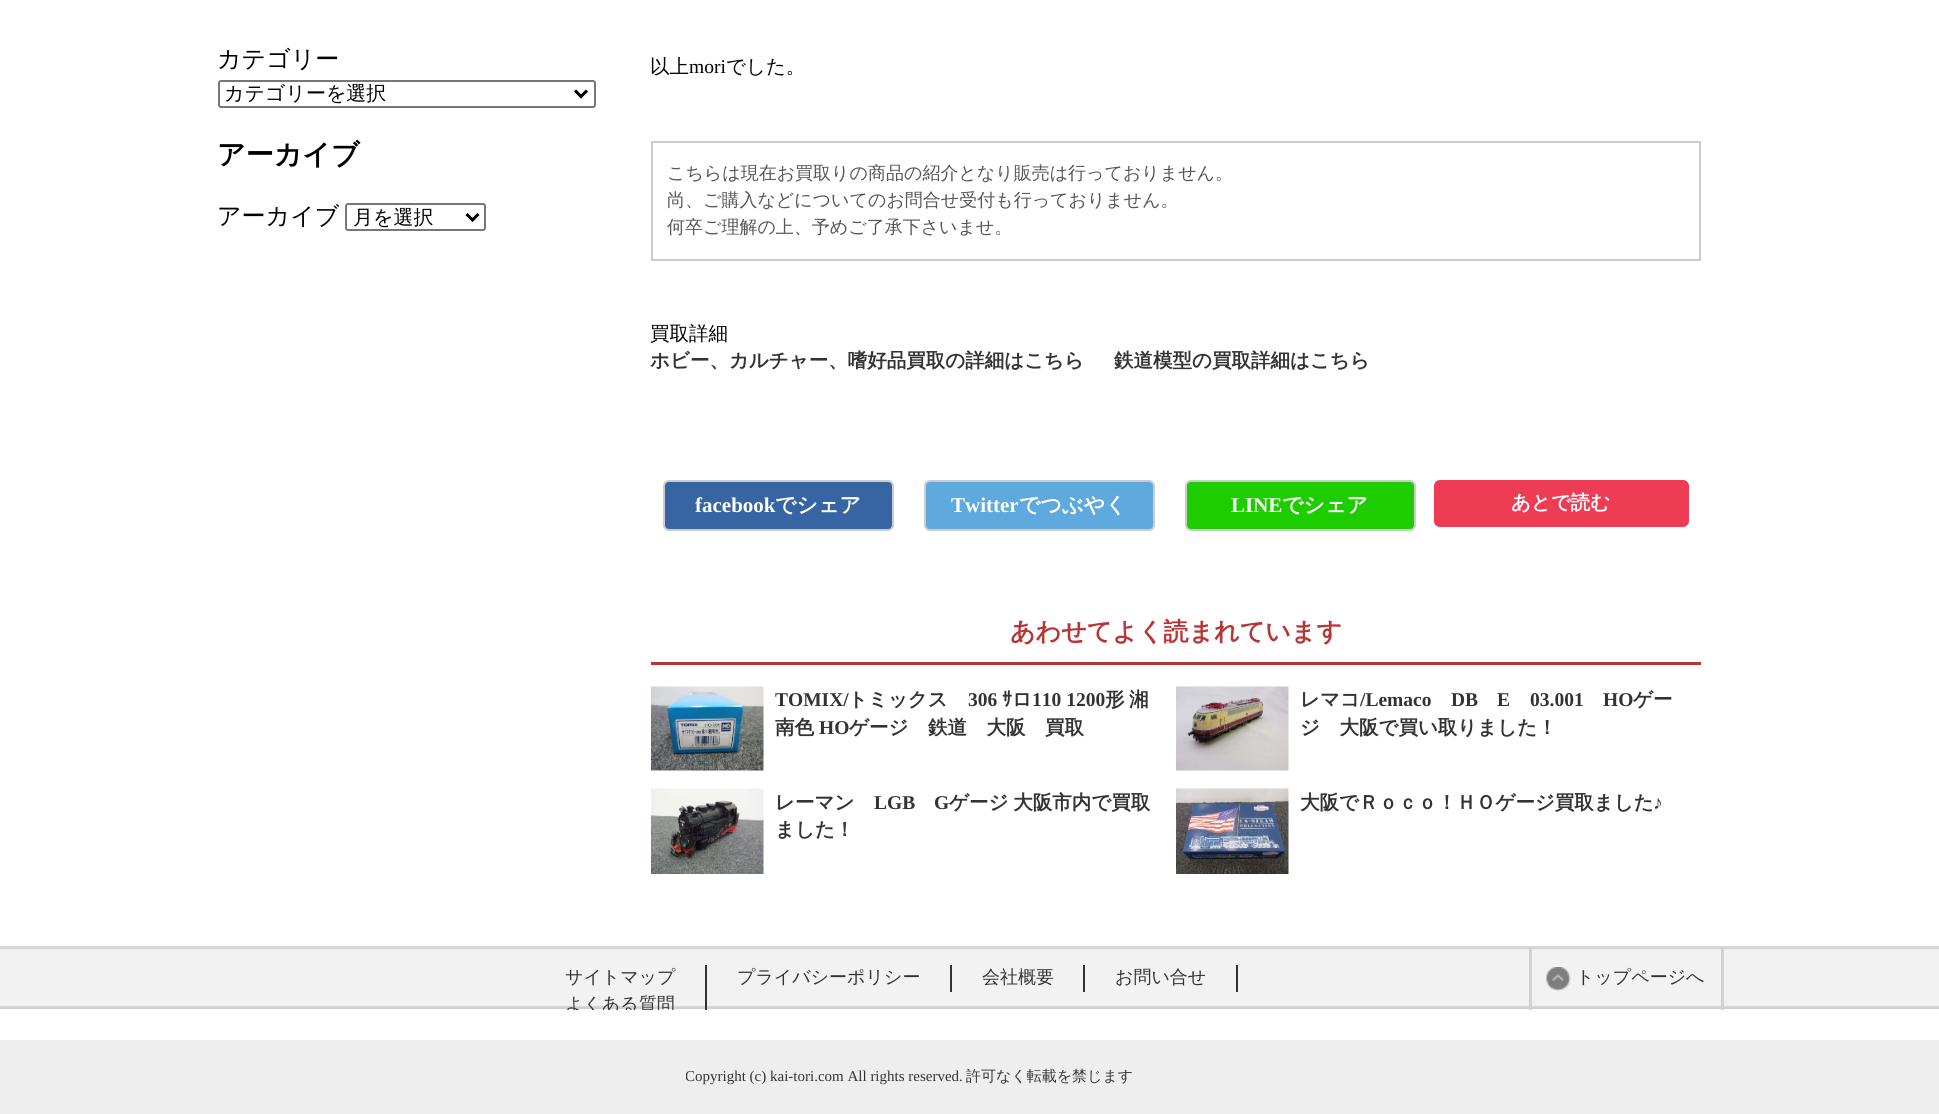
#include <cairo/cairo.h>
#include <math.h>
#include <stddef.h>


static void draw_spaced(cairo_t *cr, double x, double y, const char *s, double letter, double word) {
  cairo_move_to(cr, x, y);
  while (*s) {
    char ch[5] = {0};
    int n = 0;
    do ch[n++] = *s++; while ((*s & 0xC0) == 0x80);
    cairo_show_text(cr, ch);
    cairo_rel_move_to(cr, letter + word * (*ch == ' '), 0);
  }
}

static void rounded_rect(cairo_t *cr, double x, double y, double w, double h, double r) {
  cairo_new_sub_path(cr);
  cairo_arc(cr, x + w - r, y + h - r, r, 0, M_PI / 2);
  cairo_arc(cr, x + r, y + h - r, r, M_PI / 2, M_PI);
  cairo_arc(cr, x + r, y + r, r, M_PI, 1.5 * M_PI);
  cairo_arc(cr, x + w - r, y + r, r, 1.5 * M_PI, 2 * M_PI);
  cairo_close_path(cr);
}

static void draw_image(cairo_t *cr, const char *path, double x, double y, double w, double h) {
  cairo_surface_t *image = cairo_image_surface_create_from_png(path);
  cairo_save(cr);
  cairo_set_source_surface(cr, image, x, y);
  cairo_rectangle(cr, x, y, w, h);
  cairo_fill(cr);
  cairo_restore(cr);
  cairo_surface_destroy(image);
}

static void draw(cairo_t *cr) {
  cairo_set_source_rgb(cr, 1, 1, 1);
  cairo_paint(cr);
  rounded_rect(cr, 219, 81, 376, 26, 2);
  cairo_set_source_rgb(cr, 118 / 255.0, 118 / 255.0, 118 / 255.0);
  cairo_stroke(cr);
  cairo_new_path(cr);
  cairo_move_to(cr, 575, 90.5);
  cairo_line_to(cr, 581, 96.5);
  cairo_line_to(cr, 587, 90.5);
  cairo_set_source_rgb(cr, 0, 0, 0);
  cairo_set_line_width(cr, 3);
  cairo_stroke(cr);
  rounded_rect(cr, 346, 204, 139, 26, 2);
  cairo_set_source_rgb(cr, 118 / 255.0, 118 / 255.0, 118 / 255.0);
  cairo_set_line_width(cr, 2);
  cairo_stroke(cr);
  cairo_new_path(cr);
  cairo_move_to(cr, 466.5, 214);
  cairo_line_to(cr, 472.5, 220);
  cairo_line_to(cr, 478.5, 214);
  cairo_set_source_rgb(cr, 0, 0, 0);
  cairo_set_line_width(cr, 3);
  cairo_stroke(cr);
  cairo_rectangle(cr, 652, 142, 1048, 118);
  cairo_set_source_rgb(cr, 204 / 255.0, 204 / 255.0, 204 / 255.0);
  cairo_set_line_width(cr, 2);
  cairo_stroke(cr);
  cairo_set_source_rgb(cr, 55 / 255.0, 101 / 255.0, 163 / 255.0);
  rounded_rect(cr, 664, 481, 229, 49, 5);
  cairo_fill_preserve(cr);
  cairo_set_source_rgb(cr, 204 / 255.0, 204 / 255.0, 204 / 255.0);
  cairo_stroke(cr);
  cairo_set_source_rgb(cr, 94 / 255.0, 169 / 255.0, 221 / 255.0);
  rounded_rect(cr, 925, 481, 229, 49, 5);
  cairo_fill_preserve(cr);
  cairo_set_source_rgb(cr, 204 / 255.0, 204 / 255.0, 204 / 255.0);
  cairo_stroke(cr);
  cairo_set_source_rgb(cr, 29 / 255.0, 205 / 255.0, 0);
  rounded_rect(cr, 1186, 481, 229, 49, 5);
  cairo_fill_preserve(cr);
  cairo_set_source_rgb(cr, 204 / 255.0, 204 / 255.0, 204 / 255.0);
  cairo_stroke(cr);
  cairo_set_source_rgb(cr, 239 / 255.0, 60 / 255.0, 85 / 255.0);
  rounded_rect(cr, 1434, 480, 255, 47, 6);
  cairo_fill(cr);
  cairo_set_source_rgb(cr, 183 / 255.0, 53 / 255.0, 53 / 255.0);
  cairo_rectangle(cr, 651, 662, 1050, 3);
  cairo_fill(cr);
  draw_image(cr, "images/1.png", 651, 686, 113, 85);
  draw_image(cr, "images/2.png", 1176, 686, 113, 85);
  draw_image(cr, "images/3.png", 651, 788, 113, 86);
  draw_image(cr, "images/4.png", 1176, 788, 113, 86);
  draw_image(cr, "images/5.png", 0, 946, 1939, 63);
  cairo_set_source_rgb(cr, 51 / 255.0, 51 / 255.0, 51 / 255.0);
  cairo_rectangle(cr, 705, 965, 2, 45);
  cairo_fill(cr);
  cairo_rectangle(cr, 950, 965, 2, 27);
  cairo_fill(cr);
  cairo_rectangle(cr, 1083, 965, 2, 27);
  cairo_fill(cr);
  cairo_rectangle(cr, 1236, 965, 2, 27);
  cairo_fill(cr);
  cairo_set_source_rgb(cr, 210 / 255.0, 210 / 255.0, 210 / 255.0);
  cairo_rectangle(cr, 1721, 947, 3, 63);
  cairo_fill(cr);
  cairo_rectangle(cr, 1529, 947, 3, 63);
  cairo_fill(cr);
  draw_image(cr, "images/6.png", 1546, 967, 25, 24);
  cairo_set_source_rgb(cr, 238 / 255.0, 238 / 255.0, 238 / 255.0);
  cairo_rectangle(cr, 0, 1040, 1939, 74);
  cairo_fill(cr);
  cairo_select_font_face(cr, "WenQuanYi Zen Hei Medium", CAIRO_FONT_SLANT_NORMAL, CAIRO_FONT_WEIGHT_NORMAL);
  cairo_set_font_size(cr, 24);
  cairo_set_source_rgb(cr, 0, 0, 0);
  cairo_move_to(cr, 217, 67);
  cairo_show_text(cr, "カテゴリー");
  cairo_set_font_size(cr, 20);
  cairo_move_to(cr, 224, 100);
  cairo_show_text(cr, "カテゴリーを選択");
  cairo_select_font_face(cr, "WenQuanYi Zen Hei", CAIRO_FONT_SLANT_NORMAL, CAIRO_FONT_WEIGHT_BOLD);
  cairo_set_font_size(cr, 28);
  cairo_move_to(cr, 217, 164);
  cairo_show_text(cr, "アーカイブ");
  cairo_select_font_face(cr, "WenQuanYi Zen Hei Medium", CAIRO_FONT_SLANT_NORMAL, CAIRO_FONT_WEIGHT_NORMAL);
  cairo_set_font_size(cr, 24);
  cairo_move_to(cr, 217, 224);
  cairo_show_text(cr, "アーカイブ");
  cairo_set_font_size(cr, 20);
  cairo_move_to(cr, 353, 224);
  cairo_show_text(cr, "月を選択");
  cairo_set_font_size(cr, 19.5);
  cairo_move_to(cr, 650, 73);
  cairo_show_text(cr, "以上");
  cairo_select_font_face(cr, "Liberation Serif", CAIRO_FONT_SLANT_NORMAL, CAIRO_FONT_WEIGHT_NORMAL);
  cairo_move_to(cr, 689, 73);
  cairo_show_text(cr, "mori");
  cairo_select_font_face(cr, "WenQuanYi Zen Hei Medium", CAIRO_FONT_SLANT_NORMAL, CAIRO_FONT_WEIGHT_NORMAL);
  cairo_move_to(cr, 726, 73);
  cairo_show_text(cr, "でした。");
  cairo_set_font_size(cr, 18);
  cairo_set_source_rgb(cr, 85 / 255.0, 85 / 255.0, 85 / 255.0);
  cairo_move_to(cr, 667, 179);
  cairo_show_text(cr, "こちらは現在お買取りの商品の紹介となり販売は行っておりません。");
  cairo_move_to(cr, 667, 206);
  cairo_show_text(cr, "尚、ご購入などについてのお問合せ受付も行っておりません。");
  cairo_move_to(cr, 667, 233);
  cairo_show_text(cr, "何卒ご理解の上、予めご了承下さいませ。");
  cairo_set_font_size(cr, 19.5);
  cairo_set_source_rgb(cr, 0, 0, 0);
  cairo_move_to(cr, 650, 340);
  cairo_show_text(cr, "買取詳細");
  cairo_select_font_face(cr, "WenQuanYi Zen Hei", CAIRO_FONT_SLANT_NORMAL, CAIRO_FONT_WEIGHT_BOLD);
  cairo_set_source_rgb(cr, 51 / 255.0, 51 / 255.0, 51 / 255.0);
  cairo_move_to(cr, 650, 367);
  cairo_show_text(cr, "ホビー、カルチャー、嗜好品買取の詳細はこちら");
  cairo_move_to(cr, 1114, 367);
  cairo_show_text(cr, "鉄道模型の買取詳細はこちら");
  cairo_select_font_face(cr, "Liberation Serif", CAIRO_FONT_SLANT_NORMAL, CAIRO_FONT_WEIGHT_BOLD);
  cairo_set_font_size(cr, 21);
  cairo_set_source_rgb(cr, 1, 1, 1);
  cairo_move_to(cr, 695, 512);
  cairo_show_text(cr, "facebook");
  cairo_select_font_face(cr, "WenQuanYi Zen Hei", CAIRO_FONT_SLANT_NORMAL, CAIRO_FONT_WEIGHT_BOLD);
  cairo_move_to(cr, 775, 512);
  cairo_show_text(cr, "でシェア");
  cairo_select_font_face(cr, "Liberation Serif", CAIRO_FONT_SLANT_NORMAL, CAIRO_FONT_WEIGHT_BOLD);
  cairo_move_to(cr, 951, 512);
  cairo_show_text(cr, "Twitter");
  cairo_select_font_face(cr, "WenQuanYi Zen Hei", CAIRO_FONT_SLANT_NORMAL, CAIRO_FONT_WEIGHT_BOLD);
  cairo_move_to(cr, 1019, 512);
  cairo_show_text(cr, "でつぶやく");
  cairo_select_font_face(cr, "Liberation Serif", CAIRO_FONT_SLANT_NORMAL, CAIRO_FONT_WEIGHT_BOLD);
  cairo_move_to(cr, 1231, 512);
  cairo_show_text(cr, "LINE");
  cairo_select_font_face(cr, "WenQuanYi Zen Hei", CAIRO_FONT_SLANT_NORMAL, CAIRO_FONT_WEIGHT_BOLD);
  cairo_move_to(cr, 1282, 512);
  cairo_show_text(cr, "でシェア");
  cairo_set_font_size(cr, 19.5);
  cairo_move_to(cr, 1511, 509);
  cairo_show_text(cr, "あとで読む");
  cairo_set_font_size(cr, 25);
  cairo_set_source_rgb(cr, 183 / 255.0, 53 / 255.0, 53 / 255.0);
  cairo_move_to(cr, 1010, 640);
  cairo_show_text(cr, "あわせてよく読まれています");
  cairo_select_font_face(cr, "Liberation Serif", CAIRO_FONT_SLANT_NORMAL, CAIRO_FONT_WEIGHT_BOLD);
  cairo_set_font_size(cr, 19.5);
  cairo_set_source_rgb(cr, 51 / 255.0, 51 / 255.0, 51 / 255.0);
  cairo_move_to(cr, 775, 706);
  cairo_show_text(cr, "TOMIX/");
  cairo_select_font_face(cr, "WenQuanYi Zen Hei", CAIRO_FONT_SLANT_NORMAL, CAIRO_FONT_WEIGHT_BOLD);
  cairo_move_to(cr, 848, 706);
  cairo_show_text(cr, "トミックス");
  cairo_select_font_face(cr, "Liberation Serif", CAIRO_FONT_SLANT_NORMAL, CAIRO_FONT_WEIGHT_BOLD);
  cairo_move_to(cr, 968, 706);
  cairo_show_text(cr, "306");
  cairo_select_font_face(cr, "IPAPGothic", CAIRO_FONT_SLANT_NORMAL, CAIRO_FONT_WEIGHT_BOLD);
  cairo_move_to(cr, 1002, 706);
  cairo_show_text(cr, "ｻ");
  cairo_select_font_face(cr, "WenQuanYi Zen Hei", CAIRO_FONT_SLANT_NORMAL, CAIRO_FONT_WEIGHT_BOLD);
  cairo_move_to(cr, 1012, 706);
  cairo_show_text(cr, "ロ");
  cairo_select_font_face(cr, "Liberation Serif", CAIRO_FONT_SLANT_NORMAL, CAIRO_FONT_WEIGHT_BOLD);
  cairo_move_to(cr, 1032, 706);
  cairo_show_text(cr, "110 1200");
  cairo_select_font_face(cr, "WenQuanYi Zen Hei", CAIRO_FONT_SLANT_NORMAL, CAIRO_FONT_WEIGHT_BOLD);
  cairo_move_to(cr, 1105, 706);
  cairo_show_text(cr, "形");
  cairo_move_to(cr, 1129, 706);
  cairo_show_text(cr, "湘");
  cairo_move_to(cr, 775, 734);
  cairo_show_text(cr, "南色");
  cairo_select_font_face(cr, "Liberation Serif", CAIRO_FONT_SLANT_NORMAL, CAIRO_FONT_WEIGHT_BOLD);
  cairo_move_to(cr, 819, 734);
  cairo_show_text(cr, "HO");
  cairo_select_font_face(cr, "WenQuanYi Zen Hei", CAIRO_FONT_SLANT_NORMAL, CAIRO_FONT_WEIGHT_BOLD);
  cairo_move_to(cr, 849, 734);
  cairo_show_text(cr, "ゲージ　鉄道　大阪　買取");
  cairo_move_to(cr, 1300, 706);
  cairo_show_text(cr, "レマコ");
  cairo_select_font_face(cr, "Liberation Serif", CAIRO_FONT_SLANT_NORMAL, CAIRO_FONT_WEIGHT_BOLD);
  cairo_move_to(cr, 1360, 706);
  cairo_show_text(cr, "/Lemaco");
  cairo_move_to(cr, 1451, 706);
  cairo_show_text(cr, "DB");
  cairo_move_to(cr, 1497, 706);
  cairo_show_text(cr, "E");
  cairo_move_to(cr, 1530, 706);
  cairo_show_text(cr, "03.001");
  cairo_move_to(cr, 1603, 706);
  cairo_show_text(cr, "HO");
  cairo_select_font_face(cr, "WenQuanYi Zen Hei", CAIRO_FONT_SLANT_NORMAL, CAIRO_FONT_WEIGHT_BOLD);
  cairo_move_to(cr, 1633, 706);
  cairo_show_text(cr, "ゲー");
  cairo_move_to(cr, 1300, 734);
  cairo_show_text(cr, "ジ　大阪で買い取りました！");
  cairo_move_to(cr, 775, 809);
  cairo_show_text(cr, "レーマン");
  cairo_select_font_face(cr, "Liberation Serif", CAIRO_FONT_SLANT_NORMAL, CAIRO_FONT_WEIGHT_BOLD);
  cairo_move_to(cr, 874, 809);
  cairo_show_text(cr, "LGB");
  cairo_move_to(cr, 934, 809);
  cairo_show_text(cr, "G");
  cairo_select_font_face(cr, "WenQuanYi Zen Hei", CAIRO_FONT_SLANT_NORMAL, CAIRO_FONT_WEIGHT_BOLD);
  draw_spaced(cr, 949, 809, "ゲージ 大阪市内で買取", 0, -1);
  cairo_move_to(cr, 775, 836);
  cairo_show_text(cr, "ました！");
  cairo_move_to(cr, 1300, 809);
  cairo_show_text(cr, "大阪でＲｏｃｏ！ＨＯゲージ買取ました");
  cairo_select_font_face(cr, "Liberation Serif", CAIRO_FONT_SLANT_NORMAL, CAIRO_FONT_WEIGHT_BOLD);
  cairo_move_to(cr, 1653, 809);
  cairo_show_text(cr, "♪");
  cairo_select_font_face(cr, "WenQuanYi Zen Hei Medium", CAIRO_FONT_SLANT_NORMAL, CAIRO_FONT_WEIGHT_NORMAL);
  cairo_set_font_size(cr, 18);
  cairo_move_to(cr, 565, 983);
  cairo_show_text(cr, "サイトマップ");
  cairo_move_to(cr, 737, 983);
  cairo_show_text(cr, "プライバシーポリシー");
  cairo_move_to(cr, 982, 983);
  cairo_show_text(cr, "会社概要");
  cairo_move_to(cr, 1115, 983);
  cairo_show_text(cr, "お問い合せ");
  cairo_save(cr);
  cairo_rectangle(cr, 218, 947, 1506, 63);
  cairo_clip(cr);
  cairo_move_to(cr, 565, 1010);
  cairo_show_text(cr, "よくある質問");
  cairo_restore(cr);
  cairo_move_to(cr, 1576, 983);
  cairo_show_text(cr, "トップページへ");
  cairo_save(cr);
  cairo_rectangle(cr, 686, 1055, 570, 45);
  cairo_clip(cr);
  cairo_select_font_face(cr, "Liberation Serif", CAIRO_FONT_SLANT_NORMAL, CAIRO_FONT_WEIGHT_NORMAL);
  cairo_set_font_size(cr, 15);
  cairo_move_to(cr, 685, 1081);
  cairo_show_text(cr, "Copyright (c) kai-tori.com All rights reserved.");
  cairo_restore(cr);
  cairo_set_font_size(cr, 15);
  cairo_move_to(cr, 966, 1081);
  cairo_show_text(cr, "許可なく転載を禁じます");
}

int main(void) {
  cairo_surface_t *surface = cairo_image_surface_create(CAIRO_FORMAT_RGB24, 1939, 1114);
  cairo_t *cr = cairo_create(surface);
  cairo_font_options_t *options = cairo_font_options_create();
  cairo_font_options_set_hint_metrics(options, CAIRO_HINT_METRICS_OFF);
  cairo_font_options_set_hint_style(options, CAIRO_HINT_STYLE_NONE);
  cairo_set_font_options(cr, options);
  cairo_set_miter_limit(cr, 4);
  draw(cr);
  cairo_surface_write_to_png(surface, "out.png");
  cairo_font_options_destroy(options);
  cairo_destroy(cr);
  cairo_surface_destroy(surface);
  return 0;
}
